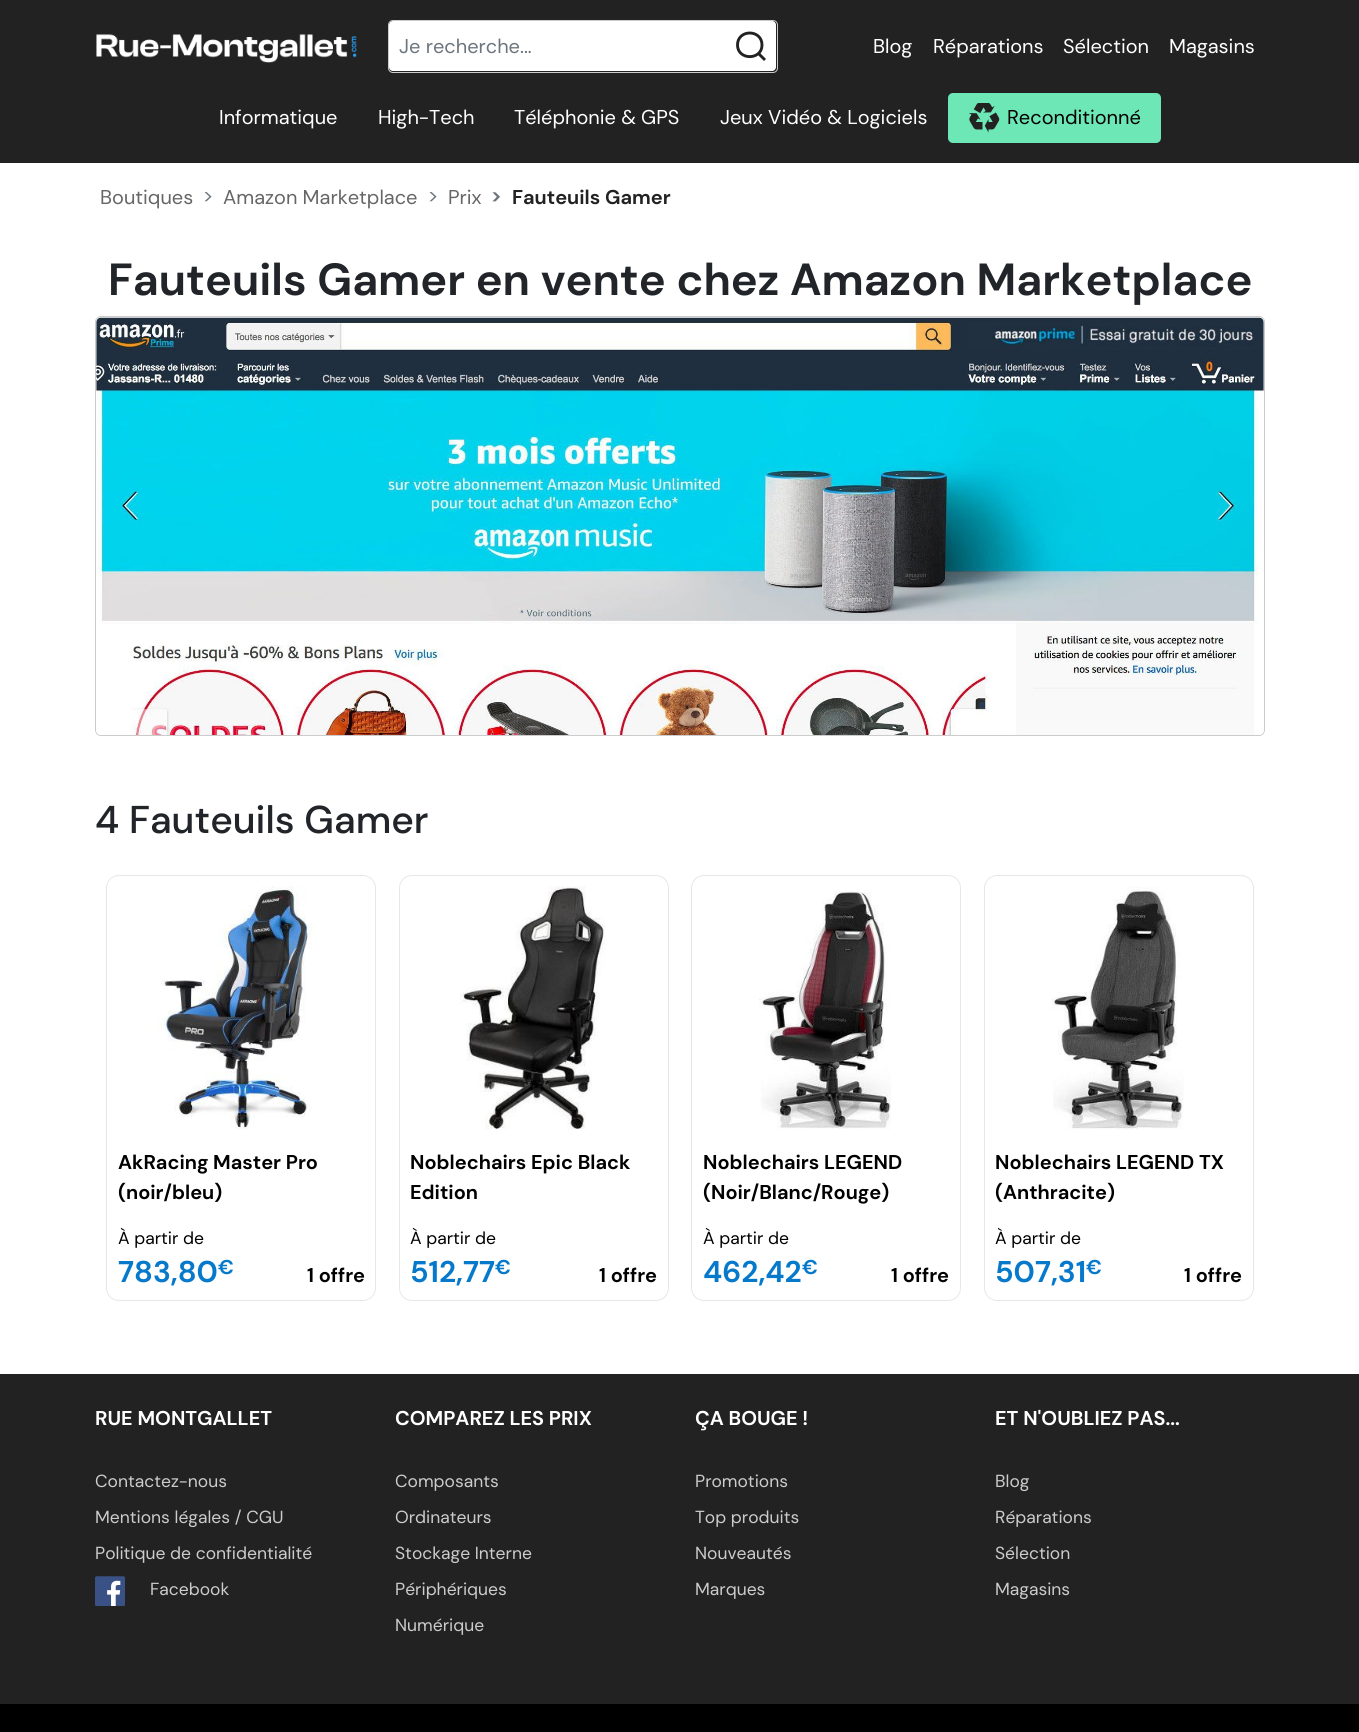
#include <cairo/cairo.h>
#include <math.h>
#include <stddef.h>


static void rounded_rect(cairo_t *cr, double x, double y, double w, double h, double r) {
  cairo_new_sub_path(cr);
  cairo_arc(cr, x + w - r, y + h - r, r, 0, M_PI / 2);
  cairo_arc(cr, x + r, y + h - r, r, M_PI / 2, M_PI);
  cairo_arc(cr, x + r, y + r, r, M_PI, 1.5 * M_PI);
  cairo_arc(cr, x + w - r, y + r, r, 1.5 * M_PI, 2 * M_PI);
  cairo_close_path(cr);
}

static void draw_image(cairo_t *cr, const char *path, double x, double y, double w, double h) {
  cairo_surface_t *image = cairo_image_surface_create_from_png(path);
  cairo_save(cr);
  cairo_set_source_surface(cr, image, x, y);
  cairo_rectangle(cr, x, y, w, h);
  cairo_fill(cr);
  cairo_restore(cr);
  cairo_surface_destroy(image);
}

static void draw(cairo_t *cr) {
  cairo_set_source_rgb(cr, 1, 1, 1);
  cairo_paint(cr);
  cairo_set_source_rgb(cr, 34 / 255.0, 34 / 255.0, 34 / 255.0);
  cairo_rectangle(cr, 0, 0, 1359, 163);
  cairo_fill(cr);
  draw_image(cr, "images/1.png", 96, 34, 261, 29);
  cairo_set_source_rgb(cr, 1, 1, 1);
  rounded_rect(cr, 389, 21, 387, 50, 4);
  cairo_fill(cr);
  cairo_new_path(cr);
  cairo_move_to(cr, 765, 60);
  cairo_line_to(cr, 758.5, 53.5);
  cairo_close_path(cr);
  cairo_move_to(cr, 762, 45);
  cairo_curve_to(cr, 762, 60.5, 737.5, 60.5, 737.5, 45);
  cairo_curve_to(cr, 737.5, 29, 762, 29, 762, 45);
  cairo_close_path(cr);
  cairo_set_source_rgb(cr, 34 / 255.0, 34 / 255.0, 34 / 255.0);
  cairo_set_line_width(cr, 2.9);
  cairo_set_line_cap(cr, CAIRO_LINE_CAP_ROUND);
  cairo_stroke(cr);
  rounded_rect(cr, 388.5, 20.5, 389, 52, 4.5);
  cairo_set_source_rgb(cr, 204 / 255.0, 204 / 255.0, 204 / 255.0);
  cairo_set_line_width(cr, 1);
  cairo_set_line_cap(cr, CAIRO_LINE_CAP_BUTT);
  cairo_stroke(cr);
  cairo_set_source_rgb(cr, 110 / 255.0, 231 / 255.0, 183 / 255.0);
  rounded_rect(cr, 948, 93, 213, 50, 5);
  cairo_fill(cr);
  draw_image(cr, "images/2.png", 969, 103, 31, 30);
  rounded_rect(cr, 95.5, 316.5, 1169, 419, 5.5);
  cairo_set_source_rgb(cr, 204 / 255.0, 204 / 255.0, 204 / 255.0);
  cairo_stroke(cr);
  draw_image(cr, "images/3.png", 96, 317, 1168, 418);
  rounded_rect(cr, 106.5, 875.5, 269, 425, 12.5);
  cairo_set_source_rgb(cr, 231 / 255.0, 231 / 255.0, 231 / 255.0);
  cairo_stroke(cr);
  draw_image(cr, "images/4.png", 155, 886, 161, 244);
  rounded_rect(cr, 399.5, 875.5, 269, 425, 12.5);
  cairo_stroke(cr);
  draw_image(cr, "images/5.png", 460, 886, 146, 244);
  rounded_rect(cr, 691.5, 875.5, 269, 425, 12.5);
  cairo_stroke(cr);
  draw_image(cr, "images/6.png", 759, 891, 132, 238);
  rounded_rect(cr, 984.5, 875.5, 269, 425, 12.5);
  cairo_stroke(cr);
  draw_image(cr, "images/7.png", 1052, 886, 132, 244);
  cairo_set_source_rgb(cr, 34 / 255.0, 34 / 255.0, 34 / 255.0);
  cairo_rectangle(cr, 0, 1374, 1359, 330);
  cairo_fill(cr);
  draw_image(cr, "images/8.png", 95, 1576, 30, 30);
  cairo_set_source_rgb(cr, 0, 0, 0);
  cairo_rectangle(cr, 0, 1704, 1359, 28);
  cairo_fill(cr);
  cairo_select_font_face(cr, "DM Sans", CAIRO_FONT_SLANT_NORMAL, CAIRO_FONT_WEIGHT_NORMAL);
  cairo_set_font_size(cr, 20);
  cairo_set_source_rgb(cr, 108 / 255.0, 117 / 255.0, 125 / 255.0);
  cairo_move_to(cr, 399, 53);
  cairo_show_text(cr, "Je recherche...");
  cairo_set_source_rgb(cr, 1, 1, 1);
  cairo_move_to(cr, 873, 53);
  cairo_show_text(cr, "Blog");
  cairo_move_to(cr, 933, 53);
  cairo_show_text(cr, "Réparations");
  cairo_move_to(cr, 1063, 53);
  cairo_show_text(cr, "Sélection");
  cairo_move_to(cr, 1169, 53);
  cairo_show_text(cr, "Magasins");
  cairo_move_to(cr, 219, 124);
  cairo_show_text(cr, "Informatique");
  cairo_move_to(cr, 378, 124);
  cairo_show_text(cr, "High-Tech");
  cairo_move_to(cr, 514, 124);
  cairo_show_text(cr, "Téléphonie & GPS");
  cairo_move_to(cr, 720, 124);
  cairo_show_text(cr, "Jeux Vidéo & Logiciels");
  cairo_set_source_rgb(cr, 0, 0, 0);
  cairo_move_to(cr, 1007, 124);
  cairo_show_text(cr, "Reconditionné");
  cairo_set_source_rgb(cr, 102 / 255.0, 102 / 255.0, 102 / 255.0);
  cairo_move_to(cr, 100, 204);
  cairo_show_text(cr, "Boutiques");
  cairo_set_source_rgb(cr, 108 / 255.0, 117 / 255.0, 125 / 255.0);
  cairo_move_to(cr, 203, 204);
  cairo_show_text(cr, ">");
  cairo_set_source_rgb(cr, 102 / 255.0, 102 / 255.0, 102 / 255.0);
  cairo_move_to(cr, 223, 204);
  cairo_show_text(cr, "Amazon Marketplace");
  cairo_set_source_rgb(cr, 108 / 255.0, 117 / 255.0, 125 / 255.0);
  cairo_move_to(cr, 428, 204);
  cairo_show_text(cr, ">");
  cairo_set_source_rgb(cr, 102 / 255.0, 102 / 255.0, 102 / 255.0);
  cairo_move_to(cr, 448, 204);
  cairo_show_text(cr, "Prix");
  cairo_select_font_face(cr, "DM Sans", CAIRO_FONT_SLANT_NORMAL, CAIRO_FONT_WEIGHT_BOLD);
  cairo_set_source_rgb(cr, 108 / 255.0, 117 / 255.0, 125 / 255.0);
  cairo_move_to(cr, 491, 204);
  cairo_show_text(cr, ">");
  cairo_set_source_rgb(cr, 34 / 255.0, 34 / 255.0, 34 / 255.0);
  cairo_move_to(cr, 512, 204);
  cairo_show_text(cr, "Fauteuils Gamer");
  cairo_set_font_size(cr, 45);
  cairo_set_source_rgb(cr, 33 / 255.0, 37 / 255.0, 41 / 255.0);
  cairo_move_to(cr, 108, 295);
  cairo_show_text(cr, "Fauteuils Gamer en vente chez Amazon Marketplace");
  cairo_select_font_face(cr, "DM Sans Medium", CAIRO_FONT_SLANT_NORMAL, CAIRO_FONT_WEIGHT_NORMAL);
  cairo_set_font_size(cr, 38.75);
  cairo_move_to(cr, 95, 833);
  cairo_show_text(cr, "4 Fauteuils Gamer");
  cairo_select_font_face(cr, "DM Sans", CAIRO_FONT_SLANT_NORMAL, CAIRO_FONT_WEIGHT_BOLD);
  cairo_set_font_size(cr, 20);
  cairo_set_source_rgb(cr, 0, 0, 0);
  cairo_move_to(cr, 118, 1169);
  cairo_show_text(cr, "AkRacing Master Pro");
  cairo_move_to(cr, 118, 1199);
  cairo_show_text(cr, "(noir/bleu)");
  cairo_select_font_face(cr, "DM Sans", CAIRO_FONT_SLANT_NORMAL, CAIRO_FONT_WEIGHT_NORMAL);
  cairo_set_font_size(cr, 17.5);
  cairo_move_to(cr, 118, 1244);
  cairo_show_text(cr, "À partir de");
  cairo_select_font_face(cr, "DM Sans", CAIRO_FONT_SLANT_NORMAL, CAIRO_FONT_WEIGHT_BOLD);
  cairo_set_font_size(cr, 30);
  cairo_set_source_rgb(cr, 6 / 255.0, 121 / 255.0, 203 / 255.0);
  cairo_move_to(cr, 118, 1282);
  cairo_show_text(cr, "783,80");
  cairo_set_font_size(cr, 20);
  cairo_move_to(cr, 218, 1274);
  cairo_show_text(cr, "€");
  cairo_set_source_rgb(cr, 0, 0, 0);
  cairo_move_to(cr, 307, 1282);
  cairo_show_text(cr, "1 offre");
  cairo_move_to(cr, 410, 1169);
  cairo_show_text(cr, "Noblechairs Epic Black");
  cairo_move_to(cr, 410, 1199);
  cairo_show_text(cr, "Edition");
  cairo_select_font_face(cr, "DM Sans", CAIRO_FONT_SLANT_NORMAL, CAIRO_FONT_WEIGHT_NORMAL);
  cairo_set_font_size(cr, 17.5);
  cairo_move_to(cr, 410, 1244);
  cairo_show_text(cr, "À partir de");
  cairo_select_font_face(cr, "DM Sans", CAIRO_FONT_SLANT_NORMAL, CAIRO_FONT_WEIGHT_BOLD);
  cairo_set_font_size(cr, 30);
  cairo_set_source_rgb(cr, 6 / 255.0, 121 / 255.0, 203 / 255.0);
  cairo_move_to(cr, 410, 1282);
  cairo_show_text(cr, "512,77");
  cairo_set_font_size(cr, 20);
  cairo_move_to(cr, 495, 1274);
  cairo_show_text(cr, "€");
  cairo_set_source_rgb(cr, 0, 0, 0);
  cairo_move_to(cr, 599, 1282);
  cairo_show_text(cr, "1 offre");
  cairo_move_to(cr, 703, 1169);
  cairo_show_text(cr, "Noblechairs LEGEND");
  cairo_move_to(cr, 703, 1199);
  cairo_show_text(cr, "(Noir/Blanc/Rouge)");
  cairo_select_font_face(cr, "DM Sans", CAIRO_FONT_SLANT_NORMAL, CAIRO_FONT_WEIGHT_NORMAL);
  cairo_set_font_size(cr, 17.5);
  cairo_move_to(cr, 703, 1244);
  cairo_show_text(cr, "À partir de");
  cairo_select_font_face(cr, "DM Sans", CAIRO_FONT_SLANT_NORMAL, CAIRO_FONT_WEIGHT_BOLD);
  cairo_set_font_size(cr, 30);
  cairo_set_source_rgb(cr, 6 / 255.0, 121 / 255.0, 203 / 255.0);
  cairo_move_to(cr, 703, 1282);
  cairo_show_text(cr, "462,42");
  cairo_set_font_size(cr, 20);
  cairo_move_to(cr, 802, 1274);
  cairo_show_text(cr, "€");
  cairo_set_source_rgb(cr, 0, 0, 0);
  cairo_move_to(cr, 891, 1282);
  cairo_show_text(cr, "1 offre");
  cairo_move_to(cr, 995, 1169);
  cairo_show_text(cr, "Noblechairs LEGEND TX");
  cairo_move_to(cr, 995, 1199);
  cairo_show_text(cr, "(Anthracite)");
  cairo_select_font_face(cr, "DM Sans", CAIRO_FONT_SLANT_NORMAL, CAIRO_FONT_WEIGHT_NORMAL);
  cairo_set_font_size(cr, 17.5);
  cairo_move_to(cr, 995, 1244);
  cairo_show_text(cr, "À partir de");
  cairo_select_font_face(cr, "DM Sans", CAIRO_FONT_SLANT_NORMAL, CAIRO_FONT_WEIGHT_BOLD);
  cairo_set_font_size(cr, 30);
  cairo_set_source_rgb(cr, 6 / 255.0, 121 / 255.0, 203 / 255.0);
  cairo_move_to(cr, 995, 1282);
  cairo_show_text(cr, "507,31");
  cairo_set_font_size(cr, 20);
  cairo_move_to(cr, 1086, 1274);
  cairo_show_text(cr, "€");
  cairo_set_source_rgb(cr, 0, 0, 0);
  cairo_move_to(cr, 1184, 1282);
  cairo_show_text(cr, "1 offre");
  cairo_set_source_rgb(cr, 1, 1, 1);
  cairo_move_to(cr, 95, 1425);
  cairo_show_text(cr, "RUE MONTGALLET");
  cairo_select_font_face(cr, "DM Sans", CAIRO_FONT_SLANT_NORMAL, CAIRO_FONT_WEIGHT_NORMAL);
  cairo_set_font_size(cr, 17.5);
  cairo_set_source_rgb(cr, 204 / 255.0, 204 / 255.0, 204 / 255.0);
  cairo_move_to(cr, 95, 1487);
  cairo_show_text(cr, "Contactez-nous");
  cairo_move_to(cr, 95, 1523);
  cairo_show_text(cr, "Mentions légales / CGU");
  cairo_move_to(cr, 95, 1559);
  cairo_show_text(cr, "Politique de confidentialité");
  cairo_move_to(cr, 150, 1595);
  cairo_show_text(cr, "Facebook");
  cairo_select_font_face(cr, "DM Sans", CAIRO_FONT_SLANT_NORMAL, CAIRO_FONT_WEIGHT_BOLD);
  cairo_set_font_size(cr, 20);
  cairo_set_source_rgb(cr, 1, 1, 1);
  cairo_move_to(cr, 395, 1425);
  cairo_show_text(cr, "COMPAREZ LES PRIX");
  cairo_select_font_face(cr, "DM Sans", CAIRO_FONT_SLANT_NORMAL, CAIRO_FONT_WEIGHT_NORMAL);
  cairo_set_font_size(cr, 17.5);
  cairo_set_source_rgb(cr, 204 / 255.0, 204 / 255.0, 204 / 255.0);
  cairo_move_to(cr, 395, 1487);
  cairo_show_text(cr, "Composants");
  cairo_move_to(cr, 395, 1523);
  cairo_show_text(cr, "Ordinateurs");
  cairo_move_to(cr, 395, 1559);
  cairo_show_text(cr, "Stockage Interne");
  cairo_move_to(cr, 395, 1595);
  cairo_show_text(cr, "Périphériques");
  cairo_move_to(cr, 395, 1631);
  cairo_show_text(cr, "Numérique");
  cairo_select_font_face(cr, "DM Sans", CAIRO_FONT_SLANT_NORMAL, CAIRO_FONT_WEIGHT_BOLD);
  cairo_set_font_size(cr, 20);
  cairo_set_source_rgb(cr, 1, 1, 1);
  cairo_move_to(cr, 695, 1425);
  cairo_show_text(cr, "ÇA BOUGE !");
  cairo_select_font_face(cr, "DM Sans", CAIRO_FONT_SLANT_NORMAL, CAIRO_FONT_WEIGHT_NORMAL);
  cairo_set_font_size(cr, 17.5);
  cairo_set_source_rgb(cr, 204 / 255.0, 204 / 255.0, 204 / 255.0);
  cairo_move_to(cr, 695, 1487);
  cairo_show_text(cr, "Promotions");
  cairo_move_to(cr, 695, 1523);
  cairo_show_text(cr, "Top produits");
  cairo_move_to(cr, 695, 1559);
  cairo_show_text(cr, "Nouveautés");
  cairo_move_to(cr, 695, 1595);
  cairo_show_text(cr, "Marques");
  cairo_select_font_face(cr, "DM Sans", CAIRO_FONT_SLANT_NORMAL, CAIRO_FONT_WEIGHT_BOLD);
  cairo_set_font_size(cr, 20);
  cairo_set_source_rgb(cr, 1, 1, 1);
  cairo_move_to(cr, 995, 1425);
  cairo_show_text(cr, "ET N'OUBLIEZ PAS...");
  cairo_select_font_face(cr, "DM Sans", CAIRO_FONT_SLANT_NORMAL, CAIRO_FONT_WEIGHT_NORMAL);
  cairo_set_font_size(cr, 17.5);
  cairo_set_source_rgb(cr, 204 / 255.0, 204 / 255.0, 204 / 255.0);
  cairo_move_to(cr, 995, 1487);
  cairo_show_text(cr, "Blog");
  cairo_move_to(cr, 995, 1523);
  cairo_show_text(cr, "Réparations");
  cairo_move_to(cr, 995, 1559);
  cairo_show_text(cr, "Sélection");
  cairo_move_to(cr, 995, 1595);
  cairo_show_text(cr, "Magasins");
}

int main(void) {
  cairo_surface_t *surface = cairo_image_surface_create(CAIRO_FORMAT_RGB24, 1359, 1732);
  cairo_t *cr = cairo_create(surface);
  cairo_font_options_t *options = cairo_font_options_create();
  cairo_font_options_set_hint_metrics(options, CAIRO_HINT_METRICS_OFF);
  cairo_font_options_set_hint_style(options, CAIRO_HINT_STYLE_NONE);
  cairo_set_font_options(cr, options);
  cairo_set_miter_limit(cr, 4);
  draw(cr);
  cairo_surface_write_to_png(surface, "out.png");
  cairo_font_options_destroy(options);
  cairo_destroy(cr);
  cairo_surface_destroy(surface);
  return 0;
}
